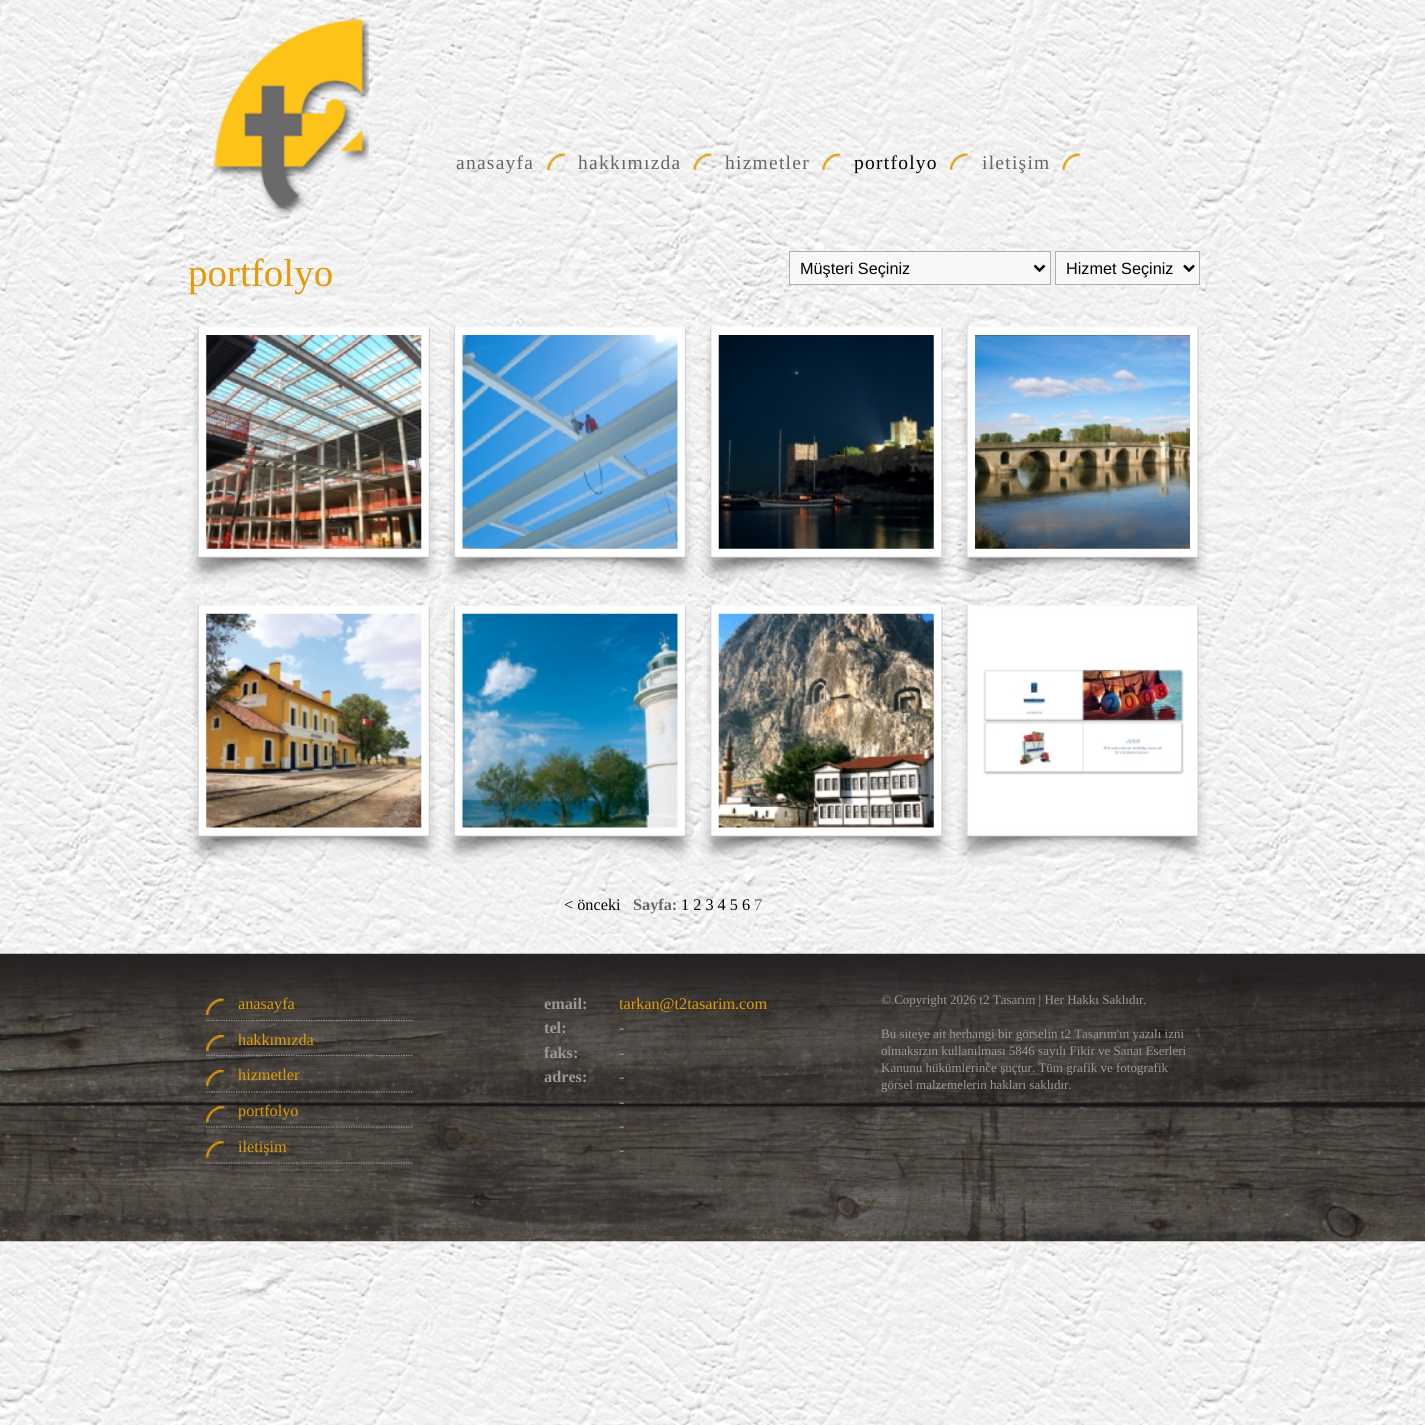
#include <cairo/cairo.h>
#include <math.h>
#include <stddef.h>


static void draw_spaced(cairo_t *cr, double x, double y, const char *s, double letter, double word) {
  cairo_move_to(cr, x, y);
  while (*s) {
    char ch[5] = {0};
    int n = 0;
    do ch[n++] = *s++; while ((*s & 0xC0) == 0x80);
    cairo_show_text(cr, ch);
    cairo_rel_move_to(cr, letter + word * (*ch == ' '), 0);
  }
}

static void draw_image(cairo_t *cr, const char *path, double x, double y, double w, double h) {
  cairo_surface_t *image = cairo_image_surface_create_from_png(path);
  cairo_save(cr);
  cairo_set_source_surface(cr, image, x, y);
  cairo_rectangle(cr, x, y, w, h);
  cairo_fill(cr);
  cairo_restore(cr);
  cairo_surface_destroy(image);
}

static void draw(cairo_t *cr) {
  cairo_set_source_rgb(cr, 1, 1, 1);
  cairo_paint(cr);
  draw_image(cr, "images/1.png", 0, 0, 1425, 1425);
  draw_image(cr, "images/2.png", 213, 18, 156, 197);
  draw_image(cr, "images/3.png", 547, 153, 19, 17);
  draw_image(cr, "images/4.png", 693, 153, 19, 17);
  draw_image(cr, "images/5.png", 822, 153, 19, 17);
  draw_image(cr, "images/6.png", 950, 153, 18, 17);
  draw_image(cr, "images/7.png", 1062, 153, 19, 17);
  cairo_set_source_rgb(cr, 248 / 255.0, 248 / 255.0, 248 / 255.0);
  cairo_rectangle(cr, 789.5, 251.5, 261, 33);
  cairo_fill_preserve(cr);
  cairo_set_source_rgb(cr, 171 / 255.0, 173 / 255.0, 179 / 255.0);
  cairo_set_line_width(cr, 1);
  cairo_stroke(cr);
  cairo_new_path(cr);
  cairo_move_to(cr, 1034.5, 265.5);
  cairo_line_to(cr, 1039.5, 270.5);
  cairo_line_to(cr, 1044.5, 265.5);
  cairo_set_source_rgb(cr, 0, 0, 0);
  cairo_set_line_width(cr, 2.5);
  cairo_stroke(cr);
  cairo_set_source_rgb(cr, 248 / 255.0, 248 / 255.0, 248 / 255.0);
  cairo_rectangle(cr, 1055.5, 251.5, 144, 33);
  cairo_fill_preserve(cr);
  cairo_set_source_rgb(cr, 171 / 255.0, 173 / 255.0, 179 / 255.0);
  cairo_set_line_width(cr, 1);
  cairo_stroke(cr);
  cairo_new_path(cr);
  cairo_move_to(cr, 1184, 265.5);
  cairo_line_to(cr, 1189, 270.5);
  cairo_line_to(cr, 1194, 265.5);
  cairo_set_source_rgb(cr, 0, 0, 0);
  cairo_set_line_width(cr, 2.5);
  cairo_stroke(cr);
  draw_image(cr, "images/8.png", 188, 326, 250, 258);
  cairo_set_source_rgb(cr, 1, 1, 1);
  cairo_rectangle(cr, 206, 335, 215, 214);
  cairo_fill(cr);
  draw_image(cr, "images/9.png", 206, 335, 216, 214);
  draw_image(cr, "images/10.png", 444, 326, 250, 258);
  cairo_rectangle(cr, 463, 335, 215, 214);
  cairo_fill(cr);
  draw_image(cr, "images/11.png", 462, 335, 216, 214);
  draw_image(cr, "images/12.png", 700, 326, 251, 258);
  cairo_rectangle(cr, 719, 335, 215, 214);
  cairo_fill(cr);
  draw_image(cr, "images/13.png", 718, 335, 216, 214);
  draw_image(cr, "images/14.png", 957, 326, 250, 258);
  draw_image(cr, "images/15.png", 975, 335, 215, 214);
  draw_image(cr, "images/16.png", 188, 605, 250, 258);
  cairo_rectangle(cr, 206, 614, 215, 214);
  cairo_fill(cr);
  draw_image(cr, "images/17.png", 206, 613, 216, 215);
  draw_image(cr, "images/18.png", 444, 605, 250, 258);
  cairo_rectangle(cr, 463, 614, 215, 214);
  cairo_fill(cr);
  draw_image(cr, "images/19.png", 462, 613, 216, 215);
  draw_image(cr, "images/20.png", 700, 605, 251, 258);
  cairo_rectangle(cr, 719, 614, 215, 214);
  cairo_fill(cr);
  draw_image(cr, "images/21.png", 718, 613, 216, 215);
  draw_image(cr, "images/22.png", 957, 605, 250, 258);
  cairo_rectangle(cr, 975, 614, 215, 214);
  cairo_fill(cr);
  draw_image(cr, "images/23.png", 983, 668, 201, 107);
  draw_image(cr, "images/24.png", 0, 953, 1425, 289);
  draw_image(cr, "images/25.png", 206, 998, 18, 17);
  cairo_new_path(cr);
  cairo_move_to(cr, 206, 1020.5);
  cairo_line_to(cr, 412.5, 1020.5);
  cairo_set_source_rgb(cr, 153 / 255.0, 153 / 255.0, 153 / 255.0);
  cairo_set_line_width(cr, 1.2);
  cairo_set_dash(cr, (double[]){1.25, 1.25}, 2, 0);
  cairo_stroke(cr);
  draw_image(cr, "images/26.png", 206, 1035, 18, 17);
  cairo_new_path(cr);
  cairo_move_to(cr, 206, 1055.5);
  cairo_line_to(cr, 412.5, 1055.5);
  cairo_stroke(cr);
  draw_image(cr, "images/27.png", 206, 1070, 18, 17);
  cairo_new_path(cr);
  cairo_move_to(cr, 206, 1092);
  cairo_line_to(cr, 412.5, 1092);
  cairo_stroke(cr);
  draw_image(cr, "images/28.png", 206, 1106, 18, 17);
  cairo_new_path(cr);
  cairo_move_to(cr, 206, 1127);
  cairo_line_to(cr, 412.5, 1127);
  cairo_stroke(cr);
  draw_image(cr, "images/29.png", 206, 1141, 18, 17);
  cairo_new_path(cr);
  cairo_move_to(cr, 206, 1163);
  cairo_line_to(cr, 412.5, 1163);
  cairo_stroke(cr);
  cairo_select_font_face(cr, "Liberation Serif", CAIRO_FONT_SLANT_NORMAL, CAIRO_FONT_WEIGHT_NORMAL);
  cairo_set_font_size(cr, 19.5);
  cairo_set_source_rgb(cr, 102 / 255.0, 102 / 255.0, 102 / 255.0);
  draw_spaced(cr, 456, 169, "anasayfa", 1.25, 0);
  draw_spaced(cr, 578, 169, "hakkımızda", 1.25, 0);
  draw_spaced(cr, 725, 169, "hizmetler", 1.25, 0);
  cairo_set_source_rgb(cr, 0, 0, 0);
  draw_spaced(cr, 854, 169, "portfolyo", 1.25, 0);
  cairo_set_source_rgb(cr, 102 / 255.0, 102 / 255.0, 102 / 255.0);
  draw_spaced(cr, 982, 169, "iletişim", 1.25, 0);
  cairo_set_font_size(cr, 39);
  cairo_set_source_rgb(cr, 227 / 255.0, 155 / 255.0, 10 / 255.0);
  cairo_move_to(cr, 188, 286);
  cairo_show_text(cr, "portfolyo");
  cairo_select_font_face(cr, "Liberation Sans", CAIRO_FONT_SLANT_NORMAL, CAIRO_FONT_WEIGHT_NORMAL);
  cairo_set_font_size(cr, 16.25);
  cairo_set_source_rgb(cr, 0, 0, 0);
  cairo_move_to(cr, 800, 274);
  cairo_show_text(cr, "Müşteri Seçiniz");
  cairo_move_to(cr, 1066, 274);
  cairo_show_text(cr, "Hizmet Seçiniz");
  cairo_select_font_face(cr, "Liberation Serif", CAIRO_FONT_SLANT_NORMAL, CAIRO_FONT_WEIGHT_NORMAL);
  cairo_move_to(cr, 564, 910);
  cairo_show_text(cr, "< önceki");
  cairo_select_font_face(cr, "Liberation Serif", CAIRO_FONT_SLANT_NORMAL, CAIRO_FONT_WEIGHT_BOLD);
  cairo_set_source_rgb(cr, 102 / 255.0, 102 / 255.0, 102 / 255.0);
  cairo_move_to(cr, 633, 910);
  cairo_show_text(cr, "Sayfa:");
  cairo_select_font_face(cr, "Liberation Serif", CAIRO_FONT_SLANT_NORMAL, CAIRO_FONT_WEIGHT_NORMAL);
  cairo_set_source_rgb(cr, 0, 0, 0);
  cairo_move_to(cr, 681, 910);
  cairo_show_text(cr, "1 2 3 4 5 6");
  cairo_set_source_rgb(cr, 102 / 255.0, 102 / 255.0, 102 / 255.0);
  cairo_move_to(cr, 754, 910);
  cairo_show_text(cr, "7");
  cairo_set_source_rgb(cr, 227 / 255.0, 155 / 255.0, 10 / 255.0);
  cairo_move_to(cr, 238, 1009);
  cairo_show_text(cr, "anasayfa");
  cairo_move_to(cr, 238, 1045);
  cairo_show_text(cr, "hakkımızda");
  cairo_move_to(cr, 238, 1080);
  cairo_show_text(cr, "hizmetler");
  cairo_move_to(cr, 238, 1116);
  cairo_show_text(cr, "portfolyo");
  cairo_move_to(cr, 238, 1152);
  cairo_show_text(cr, "iletişim");
  cairo_select_font_face(cr, "Liberation Serif", CAIRO_FONT_SLANT_NORMAL, CAIRO_FONT_WEIGHT_BOLD);
  cairo_set_source_rgb(cr, 153 / 255.0, 153 / 255.0, 153 / 255.0);
  cairo_move_to(cr, 544, 1009);
  cairo_show_text(cr, "email:");
  cairo_select_font_face(cr, "Liberation Serif", CAIRO_FONT_SLANT_NORMAL, CAIRO_FONT_WEIGHT_NORMAL);
  cairo_set_source_rgb(cr, 227 / 255.0, 155 / 255.0, 10 / 255.0);
  cairo_move_to(cr, 619, 1009);
  cairo_show_text(cr, "tarkan@t2tasarim.com");
  cairo_select_font_face(cr, "Liberation Serif", CAIRO_FONT_SLANT_NORMAL, CAIRO_FONT_WEIGHT_BOLD);
  cairo_set_source_rgb(cr, 153 / 255.0, 153 / 255.0, 153 / 255.0);
  cairo_move_to(cr, 544, 1033);
  cairo_show_text(cr, "tel:");
  cairo_select_font_face(cr, "Liberation Serif", CAIRO_FONT_SLANT_NORMAL, CAIRO_FONT_WEIGHT_NORMAL);
  cairo_move_to(cr, 619, 1033);
  cairo_show_text(cr, "-");
  cairo_select_font_face(cr, "Liberation Serif", CAIRO_FONT_SLANT_NORMAL, CAIRO_FONT_WEIGHT_BOLD);
  cairo_move_to(cr, 544, 1058);
  cairo_show_text(cr, "faks:");
  cairo_select_font_face(cr, "Liberation Serif", CAIRO_FONT_SLANT_NORMAL, CAIRO_FONT_WEIGHT_NORMAL);
  cairo_move_to(cr, 619, 1058);
  cairo_show_text(cr, "-");
  cairo_select_font_face(cr, "Liberation Serif", CAIRO_FONT_SLANT_NORMAL, CAIRO_FONT_WEIGHT_BOLD);
  cairo_move_to(cr, 544, 1082);
  cairo_show_text(cr, "adres:");
  cairo_select_font_face(cr, "Liberation Serif", CAIRO_FONT_SLANT_NORMAL, CAIRO_FONT_WEIGHT_NORMAL);
  cairo_move_to(cr, 619, 1082);
  cairo_show_text(cr, "-");
  cairo_move_to(cr, 619, 1107);
  cairo_show_text(cr, "-");
  cairo_move_to(cr, 619, 1131);
  cairo_show_text(cr, "-");
  cairo_move_to(cr, 619, 1155);
  cairo_show_text(cr, "-");
  cairo_set_font_size(cr, 13);
  cairo_move_to(cr, 881, 1004);
  cairo_show_text(cr, "© Copyright 2026 t2 Tasarım | Her Hakkı Saklıdır.");
  cairo_move_to(cr, 881, 1038);
  cairo_show_text(cr, "Bu siteye ait herhangi bir görselin t2 Tasarım'ın yazılı izni");
  cairo_move_to(cr, 881, 1055);
  cairo_show_text(cr, "olmaksızın kullanılması 5846 sayılı Fikir ve Sanat Eserleri");
  cairo_move_to(cr, 881, 1072);
  cairo_show_text(cr, "Kanunu hükümlerince şuçtur. Tüm grafik ve fotografik");
  cairo_move_to(cr, 881, 1089);
  cairo_show_text(cr, "görsel malzemelerin hakları saklıdır.");
}

int main(void) {
  cairo_surface_t *surface = cairo_image_surface_create(CAIRO_FORMAT_RGB24, 1425, 1425);
  cairo_t *cr = cairo_create(surface);
  cairo_font_options_t *options = cairo_font_options_create();
  cairo_font_options_set_hint_metrics(options, CAIRO_HINT_METRICS_OFF);
  cairo_font_options_set_hint_style(options, CAIRO_HINT_STYLE_NONE);
  cairo_set_font_options(cr, options);
  cairo_set_miter_limit(cr, 4);
  draw(cr);
  cairo_surface_write_to_png(surface, "out.png");
  cairo_font_options_destroy(options);
  cairo_destroy(cr);
  cairo_surface_destroy(surface);
  return 0;
}
